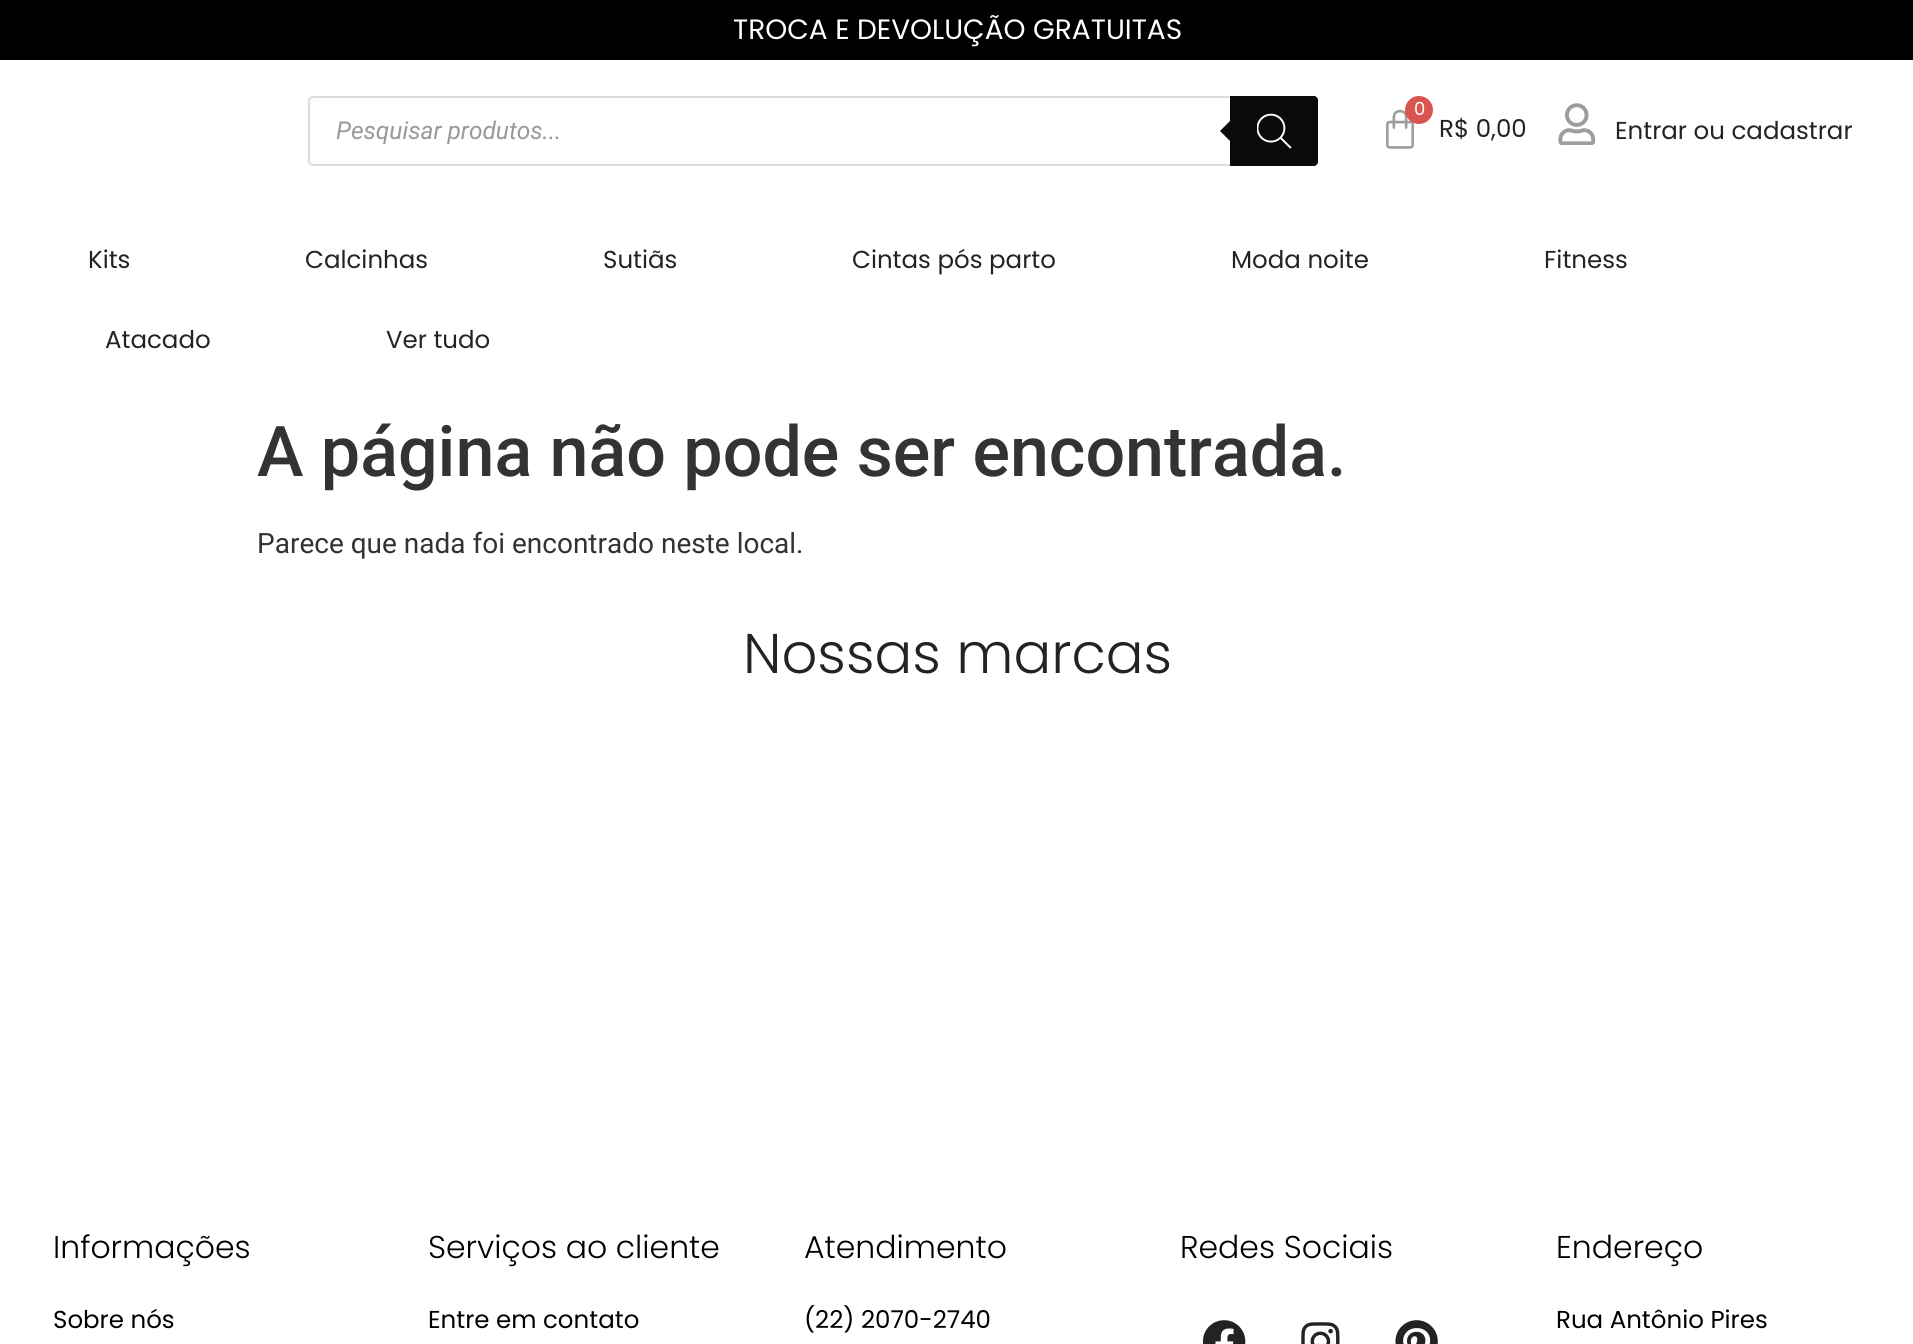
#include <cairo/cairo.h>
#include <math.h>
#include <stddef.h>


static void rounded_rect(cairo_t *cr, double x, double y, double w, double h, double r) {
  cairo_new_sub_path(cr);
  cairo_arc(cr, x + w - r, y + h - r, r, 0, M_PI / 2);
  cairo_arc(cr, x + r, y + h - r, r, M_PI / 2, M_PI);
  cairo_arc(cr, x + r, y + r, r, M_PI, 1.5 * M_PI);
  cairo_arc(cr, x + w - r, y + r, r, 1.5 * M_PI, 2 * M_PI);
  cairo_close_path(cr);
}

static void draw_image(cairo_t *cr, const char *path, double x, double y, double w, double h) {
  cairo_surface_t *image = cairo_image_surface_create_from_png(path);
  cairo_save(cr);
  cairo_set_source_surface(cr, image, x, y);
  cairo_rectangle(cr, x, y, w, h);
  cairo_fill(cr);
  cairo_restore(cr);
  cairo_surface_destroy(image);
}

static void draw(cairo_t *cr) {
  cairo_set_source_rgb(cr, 1, 1, 1);
  cairo_paint(cr);
  cairo_set_source_rgb(cr, 0, 0, 0);
  cairo_rectangle(cr, 0, 0, 1913, 60);
  cairo_fill(cr);
  rounded_rect(cr, 309, 97, 1008, 68, 4);
  cairo_set_source_rgb(cr, 221 / 255.0, 221 / 255.0, 221 / 255.0);
  cairo_stroke(cr);
  cairo_set_source_rgb(cr, 10 / 255.0, 10 / 255.0, 10 / 255.0);
  cairo_new_path(cr);
  cairo_move_to(cr, 1230, 96);
  cairo_line_to(cr, 1314, 96);
  cairo_curve_to(cr, 1316, 96, 1318, 98, 1318, 100);
  cairo_line_to(cr, 1318, 162);
  cairo_curve_to(cr, 1318, 164, 1316, 166, 1314, 166);
  cairo_line_to(cr, 1230, 166);
  cairo_close_path(cr);
  cairo_fill(cr);
  cairo_new_path(cr);
  cairo_move_to(cr, 1234, 117);
  cairo_line_to(cr, 1234, 145);
  cairo_line_to(cr, 1220, 131);
  cairo_close_path(cr);
  cairo_fill(cr);
  draw_image(cr, "images/1.png", 1257, 113, 35, 36);
  draw_image(cr, "images/2.png", 1386, 109, 28, 40);
  cairo_set_source_rgb(cr, 217 / 255.0, 83 / 255.0, 79 / 255.0);
  cairo_arc(cr, 1419, 110, 14, 0, 2 * M_PI);
  cairo_fill(cr);
  draw_image(cr, "images/3.png", 1558, 103, 38, 42);
  draw_image(cr, "images/4.png", 1202, 1320, 44, 24);
  draw_image(cr, "images/5.png", 1301, 1322, 39, 22);
  draw_image(cr, "images/6.png", 1395, 1320, 43, 24);
  cairo_select_font_face(cr, "Poppins", CAIRO_FONT_SLANT_NORMAL, CAIRO_FONT_WEIGHT_NORMAL);
  cairo_set_font_size(cr, 28);
  cairo_set_source_rgb(cr, 1, 1, 1);
  cairo_move_to(cr, 733, 39);
  cairo_show_text(cr, "TROCA E DEVOLUÇÃO GRATUITAS");
  cairo_select_font_face(cr, "Roboto", CAIRO_FONT_SLANT_ITALIC, CAIRO_FONT_WEIGHT_NORMAL);
  cairo_set_font_size(cr, 24.5);
  cairo_set_source_rgb(cr, 153 / 255.0, 153 / 255.0, 153 / 255.0);
  cairo_move_to(cr, 336, 139);
  cairo_show_text(cr, "Pesquisar produtos...");
  cairo_select_font_face(cr, "Poppins", CAIRO_FONT_SLANT_NORMAL, CAIRO_FONT_WEIGHT_NORMAL);
  cairo_set_font_size(cr, 18);
  cairo_set_source_rgb(cr, 1, 1, 1);
  cairo_move_to(cr, 1414, 115);
  cairo_show_text(cr, "0");
  cairo_set_font_size(cr, 24.5);
  cairo_set_source_rgb(cr, 35 / 255.0, 35 / 255.0, 35 / 255.0);
  cairo_move_to(cr, 1439, 137);
  cairo_show_text(cr, "R$ 0,00");
  cairo_move_to(cr, 1615, 139);
  cairo_show_text(cr, "Entrar ou cadastrar");
  cairo_move_to(cr, 88, 268);
  cairo_show_text(cr, "Kits");
  cairo_move_to(cr, 305, 268);
  cairo_show_text(cr, "Calcinhas");
  cairo_move_to(cr, 603, 268);
  cairo_show_text(cr, "Sutiãs");
  cairo_move_to(cr, 852, 268);
  cairo_show_text(cr, "Cintas pós parto");
  cairo_move_to(cr, 1231, 268);
  cairo_show_text(cr, "Moda noite");
  cairo_move_to(cr, 1544, 268);
  cairo_show_text(cr, "Fitness");
  cairo_move_to(cr, 105, 348);
  cairo_show_text(cr, "Atacado");
  cairo_move_to(cr, 386, 348);
  cairo_show_text(cr, "Ver tudo");
  cairo_select_font_face(cr, "Roboto Medium", CAIRO_FONT_SLANT_NORMAL, CAIRO_FONT_WEIGHT_NORMAL);
  cairo_set_font_size(cr, 70);
  cairo_set_source_rgb(cr, 51 / 255.0, 51 / 255.0, 51 / 255.0);
  cairo_move_to(cr, 257, 476);
  cairo_show_text(cr, "A página não pode ser encontrada.");
  cairo_select_font_face(cr, "Roboto", CAIRO_FONT_SLANT_NORMAL, CAIRO_FONT_WEIGHT_NORMAL);
  cairo_set_font_size(cr, 28);
  cairo_move_to(cr, 257, 553);
  cairo_show_text(cr, "Parece que nada foi encontrado neste local.");
  cairo_select_font_face(cr, "Poppins Light", CAIRO_FONT_SLANT_NORMAL, CAIRO_FONT_WEIGHT_NORMAL);
  cairo_set_font_size(cr, 56);
  cairo_set_source_rgb(cr, 35 / 255.0, 35 / 255.0, 35 / 255.0);
  cairo_move_to(cr, 743, 673);
  cairo_show_text(cr, "Nossas marcas");
  cairo_set_font_size(cr, 31.5);
  cairo_set_source_rgb(cr, 0, 0, 0);
  cairo_move_to(cr, 53, 1258);
  cairo_show_text(cr, "Informações");
  cairo_select_font_face(cr, "Poppins", CAIRO_FONT_SLANT_NORMAL, CAIRO_FONT_WEIGHT_NORMAL);
  cairo_set_font_size(cr, 24.5);
  cairo_move_to(cr, 53, 1328);
  cairo_show_text(cr, "Sobre nós");
  cairo_select_font_face(cr, "Poppins Light", CAIRO_FONT_SLANT_NORMAL, CAIRO_FONT_WEIGHT_NORMAL);
  cairo_set_font_size(cr, 31.5);
  cairo_move_to(cr, 428, 1258);
  cairo_show_text(cr, "Serviços ao cliente");
  cairo_select_font_face(cr, "Poppins", CAIRO_FONT_SLANT_NORMAL, CAIRO_FONT_WEIGHT_NORMAL);
  cairo_set_font_size(cr, 24.5);
  cairo_move_to(cr, 428, 1328);
  cairo_show_text(cr, "Entre em contato");
  cairo_select_font_face(cr, "Poppins Light", CAIRO_FONT_SLANT_NORMAL, CAIRO_FONT_WEIGHT_NORMAL);
  cairo_set_font_size(cr, 31.5);
  cairo_move_to(cr, 804, 1258);
  cairo_show_text(cr, "Atendimento");
  cairo_select_font_face(cr, "Poppins", CAIRO_FONT_SLANT_NORMAL, CAIRO_FONT_WEIGHT_NORMAL);
  cairo_set_font_size(cr, 24.5);
  cairo_move_to(cr, 804, 1328);
  cairo_show_text(cr, "(22) 2070-2740");
  cairo_select_font_face(cr, "Poppins Light", CAIRO_FONT_SLANT_NORMAL, CAIRO_FONT_WEIGHT_NORMAL);
  cairo_set_font_size(cr, 31.5);
  cairo_move_to(cr, 1180, 1258);
  cairo_show_text(cr, "Redes Sociais");
  cairo_move_to(cr, 1556, 1258);
  cairo_show_text(cr, "Endereço");
  cairo_select_font_face(cr, "Poppins", CAIRO_FONT_SLANT_NORMAL, CAIRO_FONT_WEIGHT_NORMAL);
  cairo_set_font_size(cr, 24.5);
  cairo_move_to(cr, 1556, 1328);
  cairo_show_text(cr, "Rua Antônio Pires");
}

int main(void) {
  cairo_surface_t *surface = cairo_image_surface_create(CAIRO_FORMAT_RGB24, 1913, 1344);
  cairo_t *cr = cairo_create(surface);
  cairo_font_options_t *options = cairo_font_options_create();
  cairo_font_options_set_hint_metrics(options, CAIRO_HINT_METRICS_OFF);
  cairo_font_options_set_hint_style(options, CAIRO_HINT_STYLE_NONE);
  cairo_set_font_options(cr, options);
  cairo_set_miter_limit(cr, 4);
  draw(cr);
  cairo_surface_write_to_png(surface, "out.png");
  cairo_font_options_destroy(options);
  cairo_destroy(cr);
  cairo_surface_destroy(surface);
  return 0;
}
